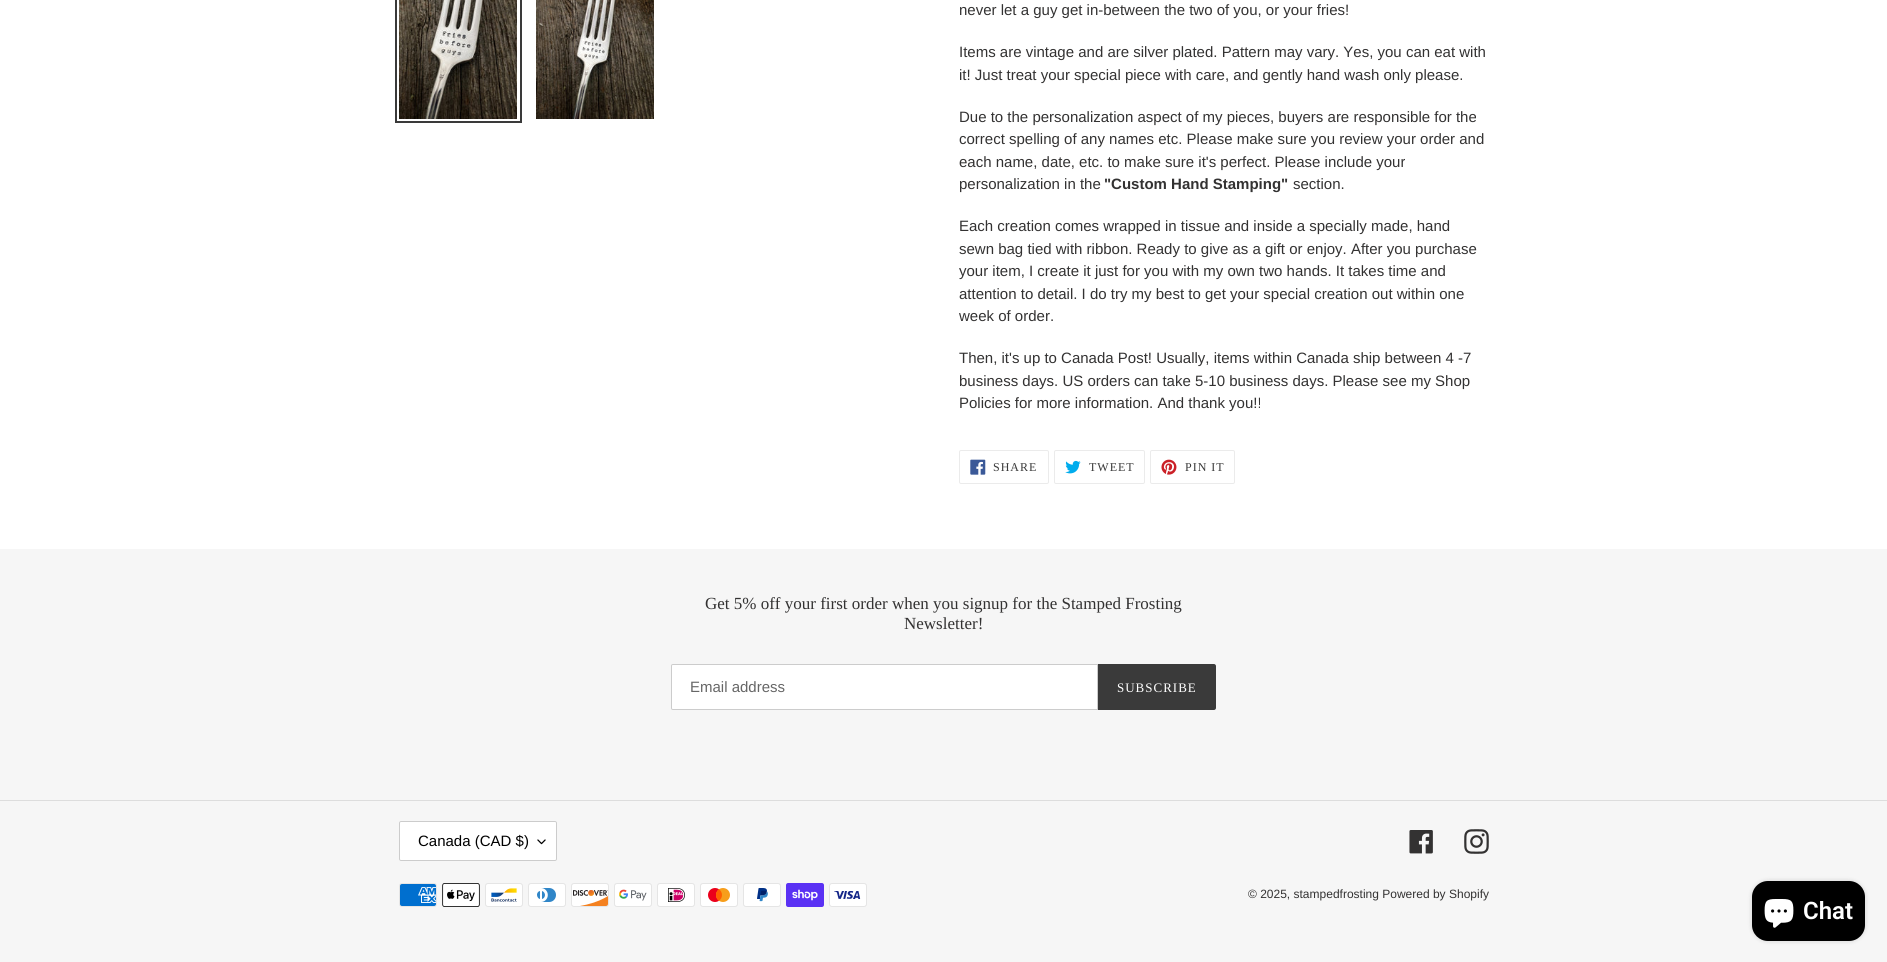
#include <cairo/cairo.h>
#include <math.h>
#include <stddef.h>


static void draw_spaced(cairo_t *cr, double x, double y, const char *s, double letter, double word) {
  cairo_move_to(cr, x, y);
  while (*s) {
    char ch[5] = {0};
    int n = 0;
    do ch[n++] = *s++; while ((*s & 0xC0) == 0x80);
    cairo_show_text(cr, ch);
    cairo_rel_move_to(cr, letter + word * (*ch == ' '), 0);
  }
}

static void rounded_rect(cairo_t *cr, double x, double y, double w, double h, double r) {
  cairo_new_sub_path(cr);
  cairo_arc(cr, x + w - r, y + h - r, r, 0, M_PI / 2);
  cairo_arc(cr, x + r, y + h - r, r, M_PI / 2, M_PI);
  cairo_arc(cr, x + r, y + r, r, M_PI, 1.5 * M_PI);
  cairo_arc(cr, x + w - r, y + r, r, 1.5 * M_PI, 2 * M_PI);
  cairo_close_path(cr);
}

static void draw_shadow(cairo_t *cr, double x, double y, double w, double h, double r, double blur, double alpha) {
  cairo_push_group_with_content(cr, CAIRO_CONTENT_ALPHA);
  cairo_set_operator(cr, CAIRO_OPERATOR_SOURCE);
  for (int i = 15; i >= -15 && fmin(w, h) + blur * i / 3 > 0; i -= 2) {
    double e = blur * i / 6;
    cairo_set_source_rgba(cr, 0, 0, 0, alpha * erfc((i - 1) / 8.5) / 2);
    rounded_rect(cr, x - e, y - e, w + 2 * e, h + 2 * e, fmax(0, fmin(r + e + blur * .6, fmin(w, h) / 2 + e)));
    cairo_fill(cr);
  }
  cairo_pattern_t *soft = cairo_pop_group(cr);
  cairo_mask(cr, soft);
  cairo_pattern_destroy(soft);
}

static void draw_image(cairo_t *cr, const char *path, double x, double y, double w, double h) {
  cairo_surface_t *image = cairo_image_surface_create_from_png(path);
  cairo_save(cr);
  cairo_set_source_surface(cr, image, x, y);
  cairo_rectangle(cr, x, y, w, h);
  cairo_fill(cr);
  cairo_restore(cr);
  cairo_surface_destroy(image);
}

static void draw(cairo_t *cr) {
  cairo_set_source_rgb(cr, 1, 1, 1);
  cairo_paint(cr);
  cairo_rectangle(cr, 396, -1, 125, 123);
  cairo_set_source_rgb(cr, 58 / 255.0, 58 / 255.0, 58 / 255.0);
  cairo_stroke(cr);
  draw_image(cr, "images/1.png", 399, 0, 118, 119);
  draw_image(cr, "images/2.png", 536, 0, 118, 119);
  rounded_rect(cr, 959.5, 450.5, 89, 33, 1.5);
  cairo_set_source_rgb(cr, 235 / 255.0, 235 / 255.0, 235 / 255.0);
  cairo_set_line_width(cr, 1);
  cairo_stroke(cr);
  draw_image(cr, "images/3.png", 970, 459, 16, 16);
  rounded_rect(cr, 1054.5, 450.5, 90, 33, 1.5);
  cairo_stroke(cr);
  draw_image(cr, "images/4.png", 1065, 460, 16, 14);
  rounded_rect(cr, 1150.5, 450.5, 84, 33, 1.5);
  cairo_stroke(cr);
  draw_image(cr, "images/5.png", 1161, 459, 16, 16);
  cairo_set_source_rgb(cr, 246 / 255.0, 246 / 255.0, 246 / 255.0);
  cairo_rectangle(cr, 0, 549, 1887, 413);
  cairo_fill(cr);
  cairo_set_source_rgb(cr, 1, 1, 1);
  cairo_new_path(cr);
  cairo_move_to(cr, 673, 664.5);
  cairo_line_to(cr, 1097.5, 664.5);
  cairo_line_to(cr, 1097.5, 709.5);
  cairo_line_to(cr, 673, 709.5);
  cairo_curve_to(cr, 672, 709.5, 671.5, 709, 671.5, 708);
  cairo_line_to(cr, 671.5, 666);
  cairo_curve_to(cr, 671.5, 665, 672, 664.5, 673, 664.5);
  cairo_close_path(cr);
  cairo_fill_preserve(cr);
  cairo_set_source_rgb(cr, 204 / 255.0, 204 / 255.0, 204 / 255.0);
  cairo_stroke(cr);
  cairo_set_source_rgb(cr, 58 / 255.0, 58 / 255.0, 58 / 255.0);
  cairo_new_path(cr);
  cairo_move_to(cr, 1098, 664);
  cairo_line_to(cr, 1214, 664);
  cairo_curve_to(cr, 1215, 664, 1216, 665, 1216, 666);
  cairo_line_to(cr, 1216, 708);
  cairo_curve_to(cr, 1216, 709, 1215, 710, 1214, 710);
  cairo_line_to(cr, 1098, 710);
  cairo_close_path(cr);
  cairo_fill(cr);
  cairo_set_source_rgb(cr, 221 / 255.0, 221 / 255.0, 221 / 255.0);
  cairo_rectangle(cr, 0, 800, 1887, 1);
  cairo_fill(cr);
  cairo_set_source_rgb(cr, 1, 1, 1);
  rounded_rect(cr, 399, 821, 158, 40, 2);
  cairo_fill(cr);
  draw_image(cr, "images/6.png", 537, 839, 9, 6);
  rounded_rect(cr, 399.5, 821.5, 157, 39, 1.5);
  cairo_set_source_rgb(cr, 204 / 255.0, 204 / 255.0, 204 / 255.0);
  cairo_stroke(cr);
  draw_image(cr, "images/7.png", 1409, 830, 24, 24);
  draw_image(cr, "images/8.png", 1464, 829, 25, 25);
  draw_image(cr, "images/9.png", 399, 883, 38, 24);
  draw_image(cr, "images/10.png", 442, 883, 38, 24);
  draw_image(cr, "images/11.png", 485, 883, 38, 24);
  draw_image(cr, "images/12.png", 528, 883, 38, 24);
  draw_image(cr, "images/13.png", 571, 883, 38, 24);
  draw_image(cr, "images/14.png", 614, 883, 38, 24);
  draw_image(cr, "images/15.png", 657, 883, 38, 24);
  draw_image(cr, "images/16.png", 700, 883, 38, 24);
  draw_image(cr, "images/17.png", 743, 883, 38, 24);
  draw_image(cr, "images/18.png", 786, 883, 38, 24);
  draw_image(cr, "images/19.png", 829, 883, 38, 24);
  cairo_set_source_rgb(cr, 0, 0, 0);
  draw_shadow(cr, 1752, 881, 113, 60, 16, 2.5, 0.15);
  cairo_set_source_rgb(cr, 0, 0, 0);
  rounded_rect(cr, 1752, 881, 113, 60, 16);
  cairo_fill(cr);
  draw_image(cr, "images/20.png", 1764, 899, 30, 29);
  cairo_select_font_face(cr, "Liberation Sans", CAIRO_FONT_SLANT_NORMAL, CAIRO_FONT_WEIGHT_NORMAL);
  cairo_set_font_size(cr, 15);
  cairo_set_source_rgb(cr, 51 / 255.0, 50 / 255.0, 50 / 255.0);
  cairo_move_to(cr, 959, 15);
  cairo_show_text(cr, "never let a guy get in-between the two of you, or your fries!");
  cairo_move_to(cr, 959, 57);
  cairo_show_text(cr, "Items are vintage and are silver plated. Pattern may vary. Yes, you can eat with");
  cairo_move_to(cr, 959, 80);
  cairo_show_text(cr, "it! Just treat your special piece with care, and gently hand wash only please.");
  cairo_move_to(cr, 959, 122);
  cairo_show_text(cr, "Due to the personalization aspect of my pieces, buyers are responsible for the");
  cairo_move_to(cr, 959, 144);
  cairo_show_text(cr, "correct spelling of any names etc. Please make sure you review your order and");
  cairo_move_to(cr, 959, 167);
  cairo_show_text(cr, "each name, date, etc. to make sure it's perfect. Please include your");
  cairo_move_to(cr, 959, 189);
  cairo_show_text(cr, "personalization in the");
  cairo_select_font_face(cr, "Liberation Sans", CAIRO_FONT_SLANT_NORMAL, CAIRO_FONT_WEIGHT_BOLD);
  cairo_move_to(cr, 1104, 189);
  cairo_show_text(cr, "\"Custom Hand Stamping\"");
  cairo_select_font_face(cr, "Liberation Sans", CAIRO_FONT_SLANT_NORMAL, CAIRO_FONT_WEIGHT_NORMAL);
  cairo_move_to(cr, 1293, 189);
  cairo_show_text(cr, "section.");
  cairo_move_to(cr, 959, 231);
  cairo_show_text(cr, "Each creation comes wrapped in tissue and inside a specially made, hand");
  cairo_move_to(cr, 959, 254);
  cairo_show_text(cr, "sewn bag tied with ribbon. Ready to give as a gift or enjoy. After you purchase");
  cairo_move_to(cr, 959, 276);
  cairo_show_text(cr, "your item, I create it just for you with my own two hands. It takes time and");
  cairo_move_to(cr, 959, 299);
  cairo_show_text(cr, "attention to detail. I do try my best to get your special creation out within one");
  cairo_move_to(cr, 959, 321);
  cairo_show_text(cr, "week of order.");
  cairo_move_to(cr, 959, 363);
  cairo_show_text(cr, "Then, it's up to Canada Post! Usually, items within Canada ship between 4 -7");
  cairo_move_to(cr, 959, 386);
  cairo_show_text(cr, "business days. US orders can take 5-10 business days. Please see my Shop");
  cairo_move_to(cr, 959, 408);
  cairo_show_text(cr, "Policies for more information. And thank you!!");
  cairo_select_font_face(cr, "Liberation Serif", CAIRO_FONT_SLANT_NORMAL, CAIRO_FONT_WEIGHT_NORMAL);
  cairo_set_font_size(cr, 12);
  cairo_set_source_rgb(cr, 58 / 255.0, 58 / 255.0, 58 / 255.0);
  draw_spaced(cr, 993, 471, "SHARE", 1, 0);
  draw_spaced(cr, 1089, 471, "TWEET", 1, 0);
  draw_spaced(cr, 1185, 471, "PIN IT", 1, 0);
  cairo_set_font_size(cr, 17);
  cairo_set_source_rgb(cr, 51 / 255.0, 50 / 255.0, 50 / 255.0);
  cairo_move_to(cr, 705, 609);
  cairo_show_text(cr, "Get 5% off your first order when you signup for the Stamped Frosting");
  cairo_move_to(cr, 904, 629);
  cairo_show_text(cr, "Newsletter!");
  cairo_select_font_face(cr, "Liberation Sans", CAIRO_FONT_SLANT_NORMAL, CAIRO_FONT_WEIGHT_NORMAL);
  cairo_set_font_size(cr, 15);
  cairo_set_source_rgb(cr, 102 / 255.0, 102 / 255.0, 102 / 255.0);
  cairo_move_to(cr, 690, 692);
  cairo_show_text(cr, "Email address");
  cairo_select_font_face(cr, "Liberation Serif", CAIRO_FONT_SLANT_NORMAL, CAIRO_FONT_WEIGHT_NORMAL);
  cairo_set_font_size(cr, 13);
  cairo_set_source_rgb(cr, 1, 1, 1);
  draw_spaced(cr, 1117, 692, "SUBSCRIBE", 1, 0);
  cairo_select_font_face(cr, "Liberation Sans", CAIRO_FONT_SLANT_NORMAL, CAIRO_FONT_WEIGHT_NORMAL);
  cairo_set_font_size(cr, 15);
  cairo_set_source_rgb(cr, 0, 0, 0);
  cairo_move_to(cr, 418, 846);
  cairo_show_text(cr, "Canada (CAD $)");
  cairo_set_font_size(cr, 12);
  cairo_set_source_rgb(cr, 51 / 255.0, 50 / 255.0, 50 / 255.0);
  cairo_move_to(cr, 1248, 898);
  cairo_show_text(cr, "© 2025, stampedfrosting Powered by Shopify");
  cairo_select_font_face(cr, "Roboto SemiBold", CAIRO_FONT_SLANT_NORMAL, CAIRO_FONT_WEIGHT_NORMAL);
  cairo_set_font_size(cr, 24);
  cairo_set_source_rgb(cr, 1, 1, 1);
  cairo_move_to(cr, 1803, 919);
  cairo_show_text(cr, "Chat");
}

int main(void) {
  cairo_surface_t *surface = cairo_image_surface_create(CAIRO_FORMAT_RGB24, 1887, 962);
  cairo_t *cr = cairo_create(surface);
  cairo_font_options_t *options = cairo_font_options_create();
  cairo_font_options_set_hint_metrics(options, CAIRO_HINT_METRICS_OFF);
  cairo_font_options_set_hint_style(options, CAIRO_HINT_STYLE_NONE);
  cairo_set_font_options(cr, options);
  cairo_set_miter_limit(cr, 4);
  draw(cr);
  cairo_surface_write_to_png(surface, "out.png");
  cairo_font_options_destroy(options);
  cairo_destroy(cr);
  cairo_surface_destroy(surface);
  return 0;
}
